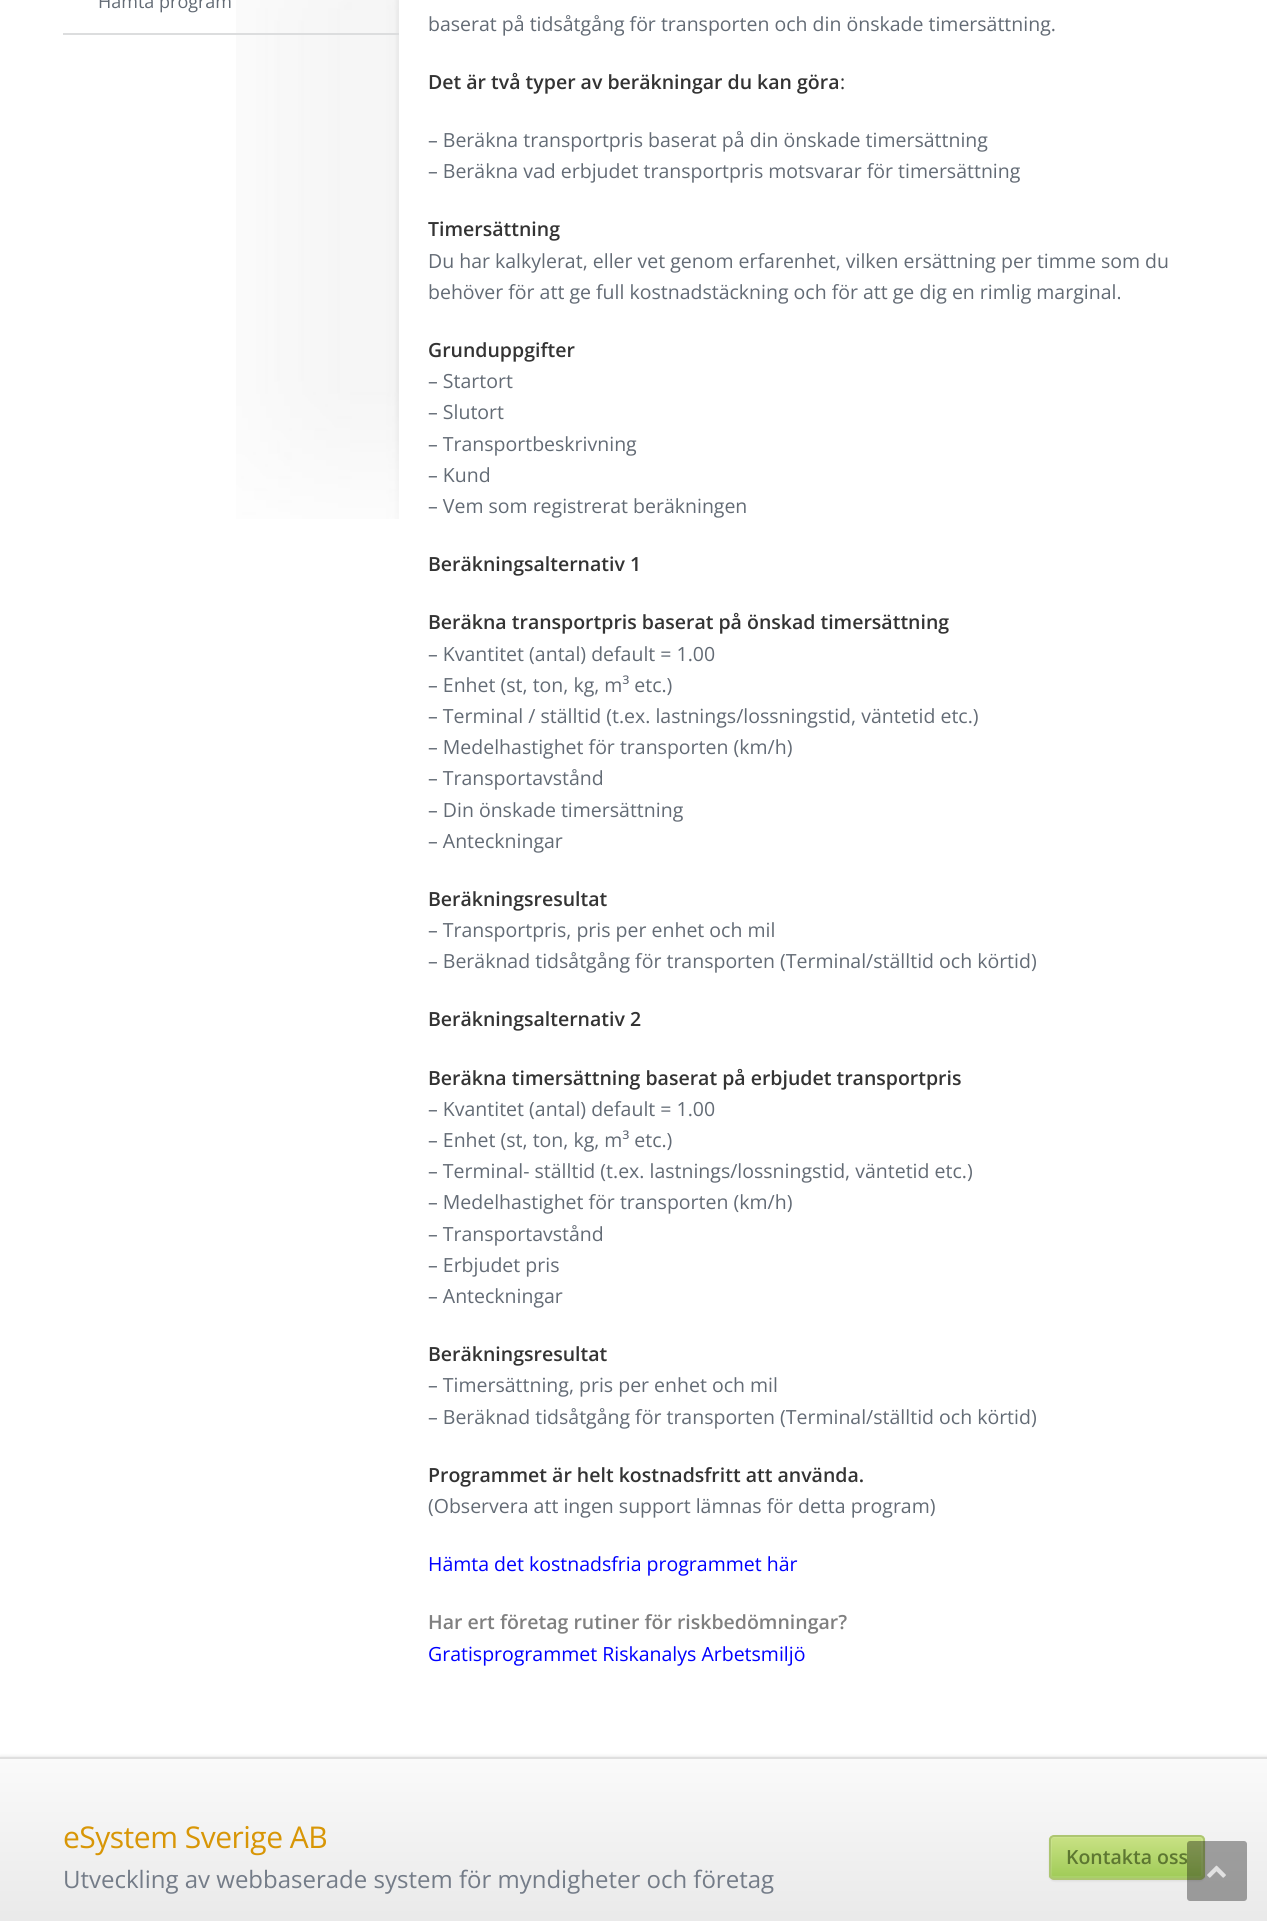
#include <cairo/cairo.h>
#include <math.h>
#include <stddef.h>


static void draw_spaced(cairo_t *cr, double x, double y, const char *s, double letter, double word) {
  cairo_move_to(cr, x, y);
  while (*s) {
    char ch[5] = {0};
    int n = 0;
    do ch[n++] = *s++; while ((*s & 0xC0) == 0x80);
    cairo_show_text(cr, ch);
    cairo_rel_move_to(cr, letter + word * (*ch == ' '), 0);
  }
}

static void rounded_rect(cairo_t *cr, double x, double y, double w, double h, double r) {
  cairo_new_sub_path(cr);
  cairo_arc(cr, x + w - r, y + h - r, r, 0, M_PI / 2);
  cairo_arc(cr, x + r, y + h - r, r, M_PI / 2, M_PI);
  cairo_arc(cr, x + r, y + r, r, M_PI, 1.5 * M_PI);
  cairo_arc(cr, x + w - r, y + r, r, 1.5 * M_PI, 2 * M_PI);
  cairo_close_path(cr);
}

static void draw_shadow(cairo_t *cr, double x, double y, double w, double h, double r, double blur, double alpha) {
  cairo_push_group_with_content(cr, CAIRO_CONTENT_ALPHA);
  cairo_set_operator(cr, CAIRO_OPERATOR_SOURCE);
  for (int i = 15; i >= -15 && fmin(w, h) + blur * i / 3 > 0; i -= 2) {
    double e = blur * i / 6;
    cairo_set_source_rgba(cr, 0, 0, 0, alpha * erfc((i - 1) / 8.5) / 2);
    rounded_rect(cr, x - e, y - e, w + 2 * e, h + 2 * e, fmax(0, fmin(r + e + blur * .6, fmin(w, h) / 2 + e)));
    cairo_fill(cr);
  }
  cairo_pattern_t *soft = cairo_pop_group(cr);
  cairo_mask(cr, soft);
  cairo_pattern_destroy(soft);
}

static void draw_image(cairo_t *cr, const char *path, double x, double y, double w, double h) {
  cairo_surface_t *image = cairo_image_surface_create_from_png(path);
  cairo_save(cr);
  cairo_set_source_surface(cr, image, x, y);
  cairo_rectangle(cr, x, y, w, h);
  cairo_fill(cr);
  cairo_restore(cr);
  cairo_surface_destroy(image);
}

static void draw(cairo_t *cr) {
  cairo_pattern_t *gradient;
  cairo_set_source_rgb(cr, 1, 1, 1);
  cairo_paint(cr);
  draw_image(cr, "images/1.png", 236, 0, 163, 519);
  cairo_set_source_rgb(cr, 220 / 255.0, 221 / 255.0, 222 / 255.0);
  cairo_rectangle(cr, 63, 33, 336, 2);
  cairo_fill(cr);
  cairo_set_source_rgb(cr, 221 / 255.0, 221 / 255.0, 221 / 255.0);
  draw_shadow(cr, 0, 1757, 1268, 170, 0, 2, 1);
  gradient = cairo_pattern_create_linear(634, 1758, 634, 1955);
  cairo_pattern_add_color_stop_rgba(gradient, 0, 250 / 255.0, 250 / 255.0, 250 / 255.0, 1);
  cairo_pattern_add_color_stop_rgba(gradient, 1, 230 / 255.0, 230 / 255.0, 230 / 255.0, 1);
  cairo_set_source(cr, gradient);
  cairo_pattern_destroy(gradient);
  cairo_rectangle(cr, 0, 1759, 1267, 162);
  cairo_fill(cr);
  cairo_set_source_rgb(cr, 223 / 255.0, 223 / 255.0, 223 / 255.0);
  cairo_rectangle(cr, 0, 1757, 1267, 2);
  cairo_fill(cr);
  cairo_set_source_rgb(cr, 0, 0, 0);
  draw_shadow(cr, 1049, 1836, 156, 45, 5, 1, 0.08);
  cairo_save(cr);
  rounded_rect(cr, 1049, 1835, 156, 45, 5);
  cairo_clip(cr);
  gradient = cairo_pattern_create_linear(1127, 1836, 1127, 1878);
  cairo_pattern_add_color_stop_rgba(gradient, 0, 202 / 255.0, 226 / 255.0, 133 / 255.0, 1);
  cairo_pattern_add_color_stop_rgba(gradient, 1, 159 / 255.0, 203 / 255.0, 87 / 255.0, 1);
  cairo_set_source(cr, gradient);
  cairo_pattern_destroy(gradient);
  cairo_rectangle(cr, 1049, 1836, 156, 42);
  cairo_fill(cr);
  cairo_restore(cr);
  rounded_rect(cr, 1051, 1837, 151, 40, 2);
  cairo_set_source_rgba(cr, 1, 1, 1, 0.1);
  cairo_stroke(cr);
  rounded_rect(cr, 1050, 1836, 154, 43, 4);
  cairo_set_source_rgb(cr, 173 / 255.0, 198 / 255.0, 113 / 255.0);
  cairo_stroke(cr);
  cairo_set_source_rgba(cr, 0, 0, 0, 0.35);
  rounded_rect(cr, 1187, 1841, 60, 60, 3);
  cairo_fill(cr);
  draw_image(cr, "images/2.png", 1207, 1865, 19, 13);
  cairo_select_font_face(cr, "Open Sans", CAIRO_FONT_SLANT_NORMAL, CAIRO_FONT_WEIGHT_NORMAL);
  cairo_set_font_size(cr, 18);
  cairo_set_source_rgb(cr, 99 / 255.0, 107 / 255.0, 117 / 255.0);
  cairo_move_to(cr, 98, 8);
  cairo_show_text(cr, "Hämta program");
  cairo_set_font_size(cr, 19.5);
  cairo_move_to(cr, 428, 31);
  cairo_show_text(cr, "baserat på tidsåtgång för transporten och din önskade timersättning.");
  cairo_select_font_face(cr, "Open Sans SemiBold", CAIRO_FONT_SLANT_NORMAL, CAIRO_FONT_WEIGHT_NORMAL);
  cairo_set_source_rgb(cr, 51 / 255.0, 51 / 255.0, 51 / 255.0);
  cairo_move_to(cr, 428, 89);
  cairo_show_text(cr, "Det är två typer av beräkningar du kan göra");
  cairo_select_font_face(cr, "Open Sans", CAIRO_FONT_SLANT_NORMAL, CAIRO_FONT_WEIGHT_NORMAL);
  cairo_move_to(cr, 840, 89);
  cairo_show_text(cr, ":");
  cairo_set_source_rgb(cr, 99 / 255.0, 107 / 255.0, 117 / 255.0);
  cairo_move_to(cr, 428, 147);
  cairo_show_text(cr, "– Beräkna transportpris baserat på din önskade timersättning");
  cairo_move_to(cr, 428, 178);
  cairo_show_text(cr, "– Beräkna vad erbjudet transportpris motsvarar för timersättning");
  cairo_select_font_face(cr, "Open Sans SemiBold", CAIRO_FONT_SLANT_NORMAL, CAIRO_FONT_WEIGHT_NORMAL);
  cairo_set_source_rgb(cr, 51 / 255.0, 51 / 255.0, 51 / 255.0);
  cairo_move_to(cr, 428, 236);
  cairo_show_text(cr, "Timersättning");
  cairo_select_font_face(cr, "Open Sans", CAIRO_FONT_SLANT_NORMAL, CAIRO_FONT_WEIGHT_NORMAL);
  cairo_set_source_rgb(cr, 99 / 255.0, 107 / 255.0, 117 / 255.0);
  cairo_move_to(cr, 428, 268);
  cairo_show_text(cr, "Du har kalkylerat, eller vet genom erfarenhet, vilken ersättning per timme som du");
  cairo_move_to(cr, 428, 299);
  cairo_show_text(cr, "behöver för att ge full kostnadstäckning och för att ge dig en rimlig marginal.");
  cairo_select_font_face(cr, "Open Sans SemiBold", CAIRO_FONT_SLANT_NORMAL, CAIRO_FONT_WEIGHT_NORMAL);
  cairo_set_source_rgb(cr, 51 / 255.0, 51 / 255.0, 51 / 255.0);
  cairo_move_to(cr, 428, 357);
  cairo_show_text(cr, "Grunduppgifter");
  cairo_select_font_face(cr, "Open Sans", CAIRO_FONT_SLANT_NORMAL, CAIRO_FONT_WEIGHT_NORMAL);
  cairo_set_source_rgb(cr, 99 / 255.0, 107 / 255.0, 117 / 255.0);
  cairo_move_to(cr, 428, 388);
  cairo_show_text(cr, "– Startort");
  cairo_move_to(cr, 428, 419);
  cairo_show_text(cr, "– Slutort");
  cairo_move_to(cr, 428, 451);
  cairo_show_text(cr, "– Transportbeskrivning");
  cairo_move_to(cr, 428, 482);
  cairo_show_text(cr, "– Kund");
  cairo_move_to(cr, 428, 513);
  cairo_show_text(cr, "– Vem som registrerat beräkningen");
  cairo_select_font_face(cr, "Open Sans SemiBold", CAIRO_FONT_SLANT_NORMAL, CAIRO_FONT_WEIGHT_NORMAL);
  cairo_set_source_rgb(cr, 51 / 255.0, 51 / 255.0, 51 / 255.0);
  cairo_move_to(cr, 428, 571);
  cairo_show_text(cr, "Beräkningsalternativ 1");
  cairo_move_to(cr, 428, 629);
  cairo_show_text(cr, "Beräkna transportpris baserat på önskad timersättning");
  cairo_select_font_face(cr, "Open Sans", CAIRO_FONT_SLANT_NORMAL, CAIRO_FONT_WEIGHT_NORMAL);
  cairo_set_source_rgb(cr, 99 / 255.0, 107 / 255.0, 117 / 255.0);
  cairo_move_to(cr, 428, 661);
  cairo_show_text(cr, "– Kvantitet (antal) default = 1.00");
  cairo_move_to(cr, 428, 692);
  cairo_show_text(cr, "– Enhet (st, ton, kg, m³ etc.)");
  cairo_move_to(cr, 428, 723);
  cairo_show_text(cr, "– Terminal / ställtid (t.ex. lastnings/lossningstid, väntetid etc.)");
  cairo_move_to(cr, 428, 754);
  cairo_show_text(cr, "– Medelhastighet för transporten (km/h)");
  cairo_move_to(cr, 428, 785);
  cairo_show_text(cr, "– Transportavstånd");
  cairo_move_to(cr, 428, 817);
  cairo_show_text(cr, "– Din önskade timersättning");
  cairo_move_to(cr, 428, 848);
  cairo_show_text(cr, "– Anteckningar");
  cairo_select_font_face(cr, "Open Sans SemiBold", CAIRO_FONT_SLANT_NORMAL, CAIRO_FONT_WEIGHT_NORMAL);
  cairo_set_source_rgb(cr, 51 / 255.0, 51 / 255.0, 51 / 255.0);
  cairo_move_to(cr, 428, 906);
  cairo_show_text(cr, "Beräkningsresultat");
  cairo_select_font_face(cr, "Open Sans", CAIRO_FONT_SLANT_NORMAL, CAIRO_FONT_WEIGHT_NORMAL);
  cairo_set_source_rgb(cr, 99 / 255.0, 107 / 255.0, 117 / 255.0);
  cairo_move_to(cr, 428, 937);
  cairo_show_text(cr, "– Transportpris, pris per enhet och mil");
  cairo_move_to(cr, 428, 968);
  cairo_show_text(cr, "– Beräknad tidsåtgång för transporten (Terminal/ställtid och körtid)");
  cairo_select_font_face(cr, "Open Sans SemiBold", CAIRO_FONT_SLANT_NORMAL, CAIRO_FONT_WEIGHT_NORMAL);
  cairo_set_source_rgb(cr, 51 / 255.0, 51 / 255.0, 51 / 255.0);
  cairo_move_to(cr, 428, 1026);
  cairo_show_text(cr, "Beräkningsalternativ 2");
  cairo_move_to(cr, 428, 1085);
  cairo_show_text(cr, "Beräkna timersättning baserat på erbjudet transportpris");
  cairo_select_font_face(cr, "Open Sans", CAIRO_FONT_SLANT_NORMAL, CAIRO_FONT_WEIGHT_NORMAL);
  cairo_set_source_rgb(cr, 99 / 255.0, 107 / 255.0, 117 / 255.0);
  cairo_move_to(cr, 428, 1116);
  cairo_show_text(cr, "– Kvantitet (antal) default = 1.00");
  cairo_move_to(cr, 428, 1147);
  cairo_show_text(cr, "– Enhet (st, ton, kg, m³ etc.)");
  cairo_move_to(cr, 428, 1178);
  cairo_show_text(cr, "– Terminal- ställtid (t.ex. lastnings/lossningstid, väntetid etc.)");
  cairo_move_to(cr, 428, 1209);
  cairo_show_text(cr, "– Medelhastighet för transporten (km/h)");
  cairo_move_to(cr, 428, 1241);
  cairo_show_text(cr, "– Transportavstånd");
  cairo_move_to(cr, 428, 1272);
  cairo_show_text(cr, "– Erbjudet pris");
  cairo_move_to(cr, 428, 1303);
  cairo_show_text(cr, "– Anteckningar");
  cairo_select_font_face(cr, "Open Sans SemiBold", CAIRO_FONT_SLANT_NORMAL, CAIRO_FONT_WEIGHT_NORMAL);
  cairo_set_source_rgb(cr, 51 / 255.0, 51 / 255.0, 51 / 255.0);
  cairo_move_to(cr, 428, 1361);
  cairo_show_text(cr, "Beräkningsresultat");
  cairo_select_font_face(cr, "Open Sans", CAIRO_FONT_SLANT_NORMAL, CAIRO_FONT_WEIGHT_NORMAL);
  cairo_set_source_rgb(cr, 99 / 255.0, 107 / 255.0, 117 / 255.0);
  cairo_move_to(cr, 428, 1392);
  cairo_show_text(cr, "– Timersättning, pris per enhet och mil");
  cairo_move_to(cr, 428, 1424);
  cairo_show_text(cr, "– Beräknad tidsåtgång för transporten (Terminal/ställtid och körtid)");
  cairo_select_font_face(cr, "Open Sans SemiBold", CAIRO_FONT_SLANT_NORMAL, CAIRO_FONT_WEIGHT_NORMAL);
  cairo_set_source_rgb(cr, 51 / 255.0, 51 / 255.0, 51 / 255.0);
  cairo_move_to(cr, 428, 1482);
  cairo_show_text(cr, "Programmet är helt kostnadsfritt att använda.");
  cairo_select_font_face(cr, "Open Sans", CAIRO_FONT_SLANT_NORMAL, CAIRO_FONT_WEIGHT_NORMAL);
  cairo_set_source_rgb(cr, 99 / 255.0, 107 / 255.0, 117 / 255.0);
  cairo_move_to(cr, 428, 1513);
  cairo_show_text(cr, "(Observera att ingen support lämnas för detta program)");
  cairo_set_source_rgb(cr, 0, 0, 1);
  cairo_move_to(cr, 428, 1571);
  cairo_show_text(cr, "Hämta det kostnadsfria programmet här");
  cairo_select_font_face(cr, "Open Sans SemiBold", CAIRO_FONT_SLANT_NORMAL, CAIRO_FONT_WEIGHT_NORMAL);
  cairo_set_source_rgb(cr, 128 / 255.0, 128 / 255.0, 128 / 255.0);
  cairo_move_to(cr, 428, 1629);
  cairo_show_text(cr, "Har ert företag rutiner för riskbedömningar?");
  cairo_select_font_face(cr, "Open Sans", CAIRO_FONT_SLANT_NORMAL, CAIRO_FONT_WEIGHT_NORMAL);
  cairo_set_source_rgb(cr, 0, 0, 1);
  cairo_move_to(cr, 428, 1661);
  cairo_show_text(cr, "Gratisprogrammet Riskanalys Arbetsmiljö");
  cairo_set_font_size(cr, 30);
  cairo_set_source_rgb(cr, 216 / 255.0, 150 / 255.0, 6 / 255.0);
  draw_spaced(cr, 63, 1848, "eSystem Sverige AB", -0.5, 0);
  cairo_set_font_size(cr, 24);
  cairo_set_source_rgb(cr, 116 / 255.0, 124 / 255.0, 136 / 255.0);
  cairo_move_to(cr, 63, 1888);
  cairo_show_text(cr, "Utveckling av webbaserade system för myndigheter och företag");
  cairo_select_font_face(cr, "Open Sans SemiBold", CAIRO_FONT_SLANT_NORMAL, CAIRO_FONT_WEIGHT_NORMAL);
  cairo_set_font_size(cr, 19.5);
  cairo_set_source_rgb(cr, 93 / 255.0, 119 / 255.0, 49 / 255.0);
  cairo_move_to(cr, 1066, 1864);
  cairo_show_text(cr, "Kontakta oss");
}

int main(void) {
  cairo_surface_t *surface = cairo_image_surface_create(CAIRO_FORMAT_RGB24, 1267, 1921);
  cairo_t *cr = cairo_create(surface);
  cairo_font_options_t *options = cairo_font_options_create();
  cairo_font_options_set_hint_metrics(options, CAIRO_HINT_METRICS_OFF);
  cairo_font_options_set_hint_style(options, CAIRO_HINT_STYLE_NONE);
  cairo_set_font_options(cr, options);
  cairo_set_miter_limit(cr, 4);
  draw(cr);
  cairo_surface_write_to_png(surface, "out.png");
  cairo_font_options_destroy(options);
  cairo_destroy(cr);
  cairo_surface_destroy(surface);
  return 0;
}
